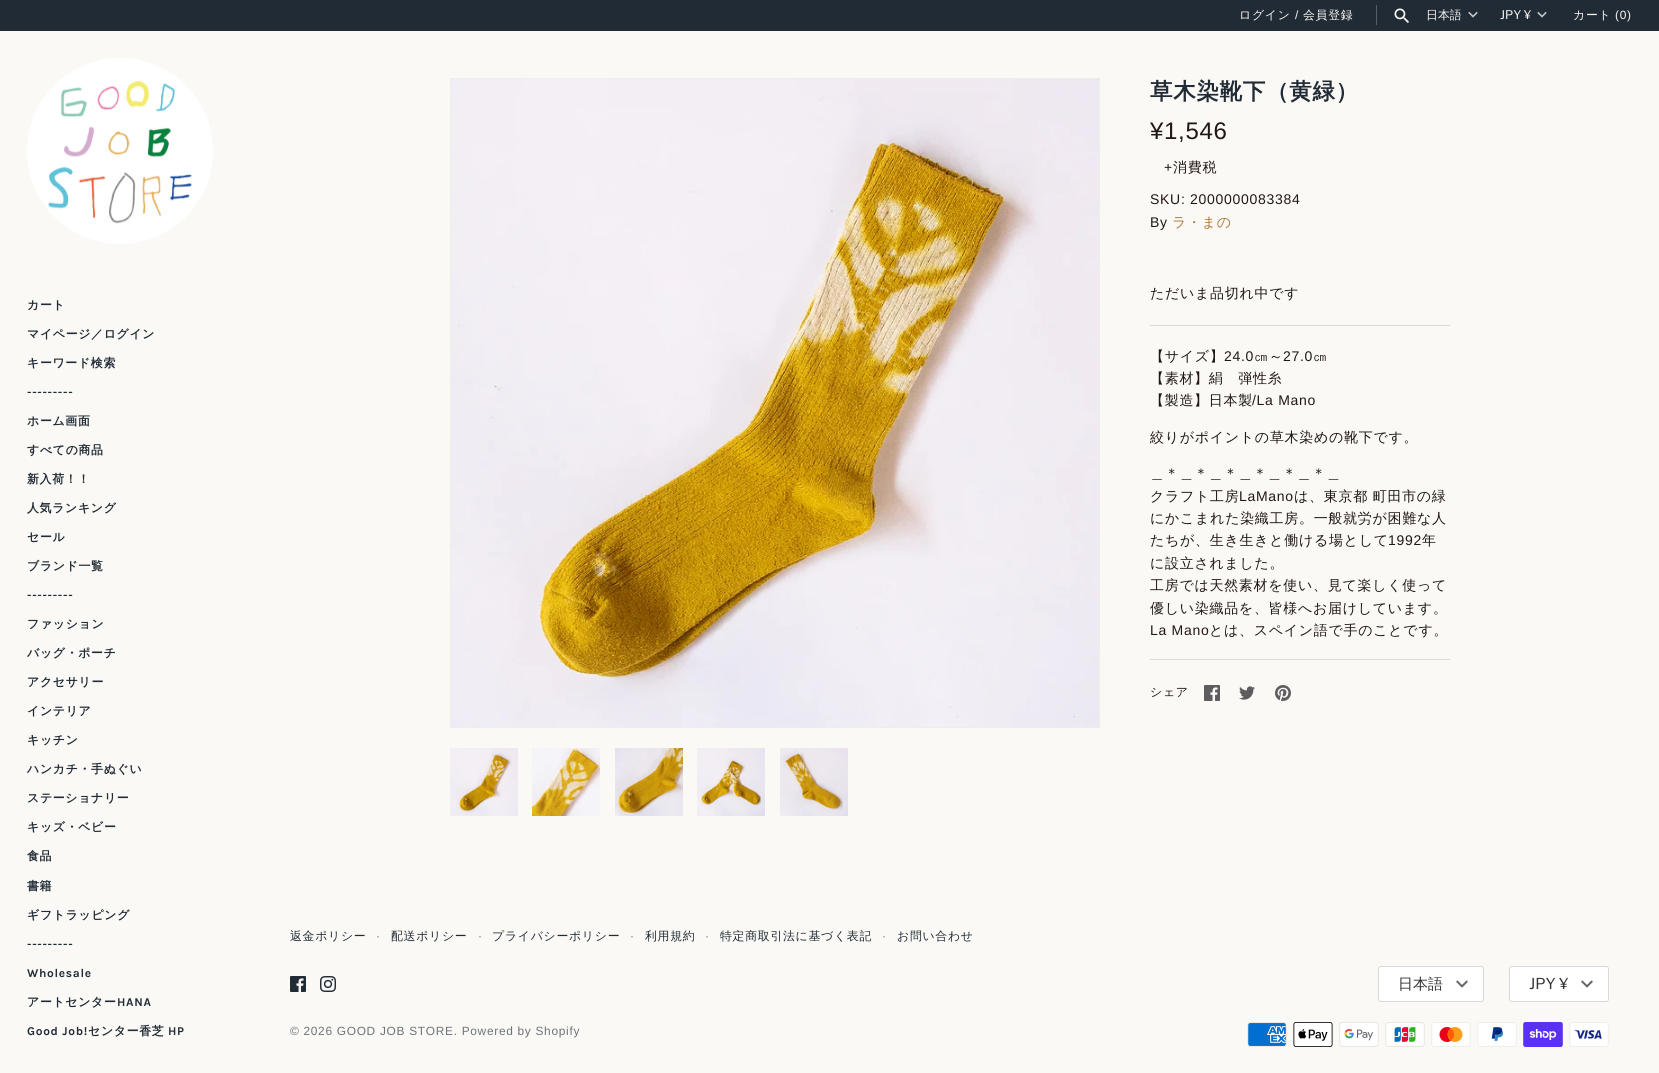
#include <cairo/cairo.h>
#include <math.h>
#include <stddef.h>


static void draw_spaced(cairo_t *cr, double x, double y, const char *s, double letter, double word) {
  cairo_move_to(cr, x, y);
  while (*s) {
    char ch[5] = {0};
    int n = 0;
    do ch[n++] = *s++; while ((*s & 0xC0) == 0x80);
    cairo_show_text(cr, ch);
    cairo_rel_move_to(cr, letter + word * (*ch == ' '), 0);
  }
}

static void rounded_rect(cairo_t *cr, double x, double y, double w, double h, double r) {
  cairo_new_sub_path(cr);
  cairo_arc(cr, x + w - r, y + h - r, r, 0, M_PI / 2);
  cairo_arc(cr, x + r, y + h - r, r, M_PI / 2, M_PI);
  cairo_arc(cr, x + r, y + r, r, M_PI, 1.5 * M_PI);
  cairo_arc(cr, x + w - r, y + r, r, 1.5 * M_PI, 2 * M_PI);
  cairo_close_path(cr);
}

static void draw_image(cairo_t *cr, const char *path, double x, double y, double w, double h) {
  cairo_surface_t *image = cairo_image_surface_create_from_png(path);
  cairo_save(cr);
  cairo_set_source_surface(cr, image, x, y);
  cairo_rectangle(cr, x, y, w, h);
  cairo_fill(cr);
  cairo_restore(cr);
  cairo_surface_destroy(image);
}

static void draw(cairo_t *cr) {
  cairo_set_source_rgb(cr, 250 / 255.0, 249 / 255.0, 245 / 255.0);
  cairo_paint(cr);
  cairo_set_source_rgb(cr, 33 / 255.0, 43 / 255.0, 54 / 255.0);
  cairo_rectangle(cr, 0, 0, 1659, 31);
  cairo_fill(cr);
  cairo_set_source_rgb(cr, 87 / 255.0, 95 / 255.0, 102 / 255.0);
  cairo_rectangle(cr, 1376, 5, 1, 20);
  cairo_fill(cr);
  draw_image(cr, "images/1.png", 1394, 8, 15, 15);
  draw_image(cr, "images/2.png", 1468, 11, 10, 7);
  draw_image(cr, "images/2.png", 1537, 11, 10, 7);
  draw_image(cr, "images/3.png", 27, 58, 186, 186);
  cairo_rectangle(cr, 450.5, 78.5, 649, 649);
  cairo_set_source_rgb(cr, 238 / 255.0, 237 / 255.0, 233 / 255.0);
  cairo_set_line_width(cr, 1);
  cairo_stroke(cr);
  draw_image(cr, "images/4.png", 451, 79, 648, 648);
  draw_image(cr, "images/5.png", 450, 748, 68, 68);
  draw_image(cr, "images/6.png", 532, 748, 68, 68);
  draw_image(cr, "images/7.png", 615, 748, 68, 68);
  draw_image(cr, "images/8.png", 697, 748, 68, 68);
  draw_image(cr, "images/9.png", 780, 748, 68, 68);
  cairo_set_source_rgb(cr, 219 / 255.0, 218 / 255.0, 215 / 255.0);
  cairo_rectangle(cr, 1150, 325, 300, 1);
  cairo_fill(cr);
  cairo_rectangle(cr, 1150, 659, 300, 1);
  cairo_fill(cr);
  draw_image(cr, "images/10.png", 1204, 685, 16, 16);
  draw_image(cr, "images/11.png", 1239, 686, 16, 14);
  draw_image(cr, "images/12.png", 1275, 685, 16, 16);
  draw_image(cr, "images/13.png", 290, 976, 16, 16);
  draw_image(cr, "images/14.png", 320, 976, 16, 16);
  cairo_set_source_rgb(cr, 1, 1, 1);
  rounded_rect(cr, 1378, 966, 106, 36, 3);
  cairo_fill(cr);
  rounded_rect(cr, 1378.5, 966.5, 105, 35, 2.5);
  cairo_set_source_rgba(cr, 0, 0, 0, 0.15);
  cairo_stroke(cr);
  draw_image(cr, "images/15.png", 1456, 980, 12, 8);
  cairo_set_source_rgb(cr, 1, 1, 1);
  rounded_rect(cr, 1509, 966, 100, 36, 3);
  cairo_fill(cr);
  rounded_rect(cr, 1509.5, 966.5, 99, 35, 2.5);
  cairo_set_source_rgba(cr, 0, 0, 0, 0.15);
  cairo_stroke(cr);
  draw_image(cr, "images/15.png", 1581, 980, 12, 8);
  draw_image(cr, "images/16.png", 1247, 1022, 40, 25);
  draw_image(cr, "images/17.png", 1293, 1022, 40, 25);
  draw_image(cr, "images/18.png", 1339, 1022, 40, 25);
  draw_image(cr, "images/19.png", 1385, 1022, 40, 25);
  draw_image(cr, "images/20.png", 1431, 1022, 40, 25);
  draw_image(cr, "images/21.png", 1477, 1022, 40, 25);
  draw_image(cr, "images/22.png", 1523, 1022, 40, 25);
  draw_image(cr, "images/23.png", 1569, 1022, 40, 25);
  cairo_select_font_face(cr, "WenQuanYi Zen Hei Medium", CAIRO_FONT_SLANT_NORMAL, CAIRO_FONT_WEIGHT_NORMAL);
  cairo_set_font_size(cr, 11.9);
  cairo_set_source_rgb(cr, 250 / 255.0, 249 / 255.0, 245 / 255.0);
  draw_spaced(cr, 1239, 19, "ログイン", 0.7, 0);
  cairo_select_font_face(cr, "Liberation Sans", CAIRO_FONT_SLANT_NORMAL, CAIRO_FONT_WEIGHT_NORMAL);
  draw_spaced(cr, 1295, 19, "/", 0.7, 0);
  cairo_select_font_face(cr, "WenQuanYi Zen Hei Medium", CAIRO_FONT_SLANT_NORMAL, CAIRO_FONT_WEIGHT_NORMAL);
  draw_spaced(cr, 1303, 19, "会員登録", 0.7, 0);
  cairo_move_to(cr, 1426, 19);
  cairo_show_text(cr, "日本語");
  cairo_select_font_face(cr, "Libre Franklin", CAIRO_FONT_SLANT_NORMAL, CAIRO_FONT_WEIGHT_NORMAL);
  cairo_move_to(cr, 1500, 19);
  cairo_show_text(cr, "JPY ¥");
  cairo_select_font_face(cr, "WenQuanYi Zen Hei Medium", CAIRO_FONT_SLANT_NORMAL, CAIRO_FONT_WEIGHT_NORMAL);
  draw_spaced(cr, 1573, 19, "カート", 0.7, 0);
  cairo_select_font_face(cr, "Liberation Sans", CAIRO_FONT_SLANT_NORMAL, CAIRO_FONT_WEIGHT_NORMAL);
  draw_spaced(cr, 1615, 19, "(0)", 0.7, 0);
  cairo_select_font_face(cr, "WenQuanYi Zen Hei", CAIRO_FONT_SLANT_NORMAL, CAIRO_FONT_WEIGHT_BOLD);
  cairo_set_source_rgb(cr, 33 / 255.0, 43 / 255.0, 54 / 255.0);
  draw_spaced(cr, 27, 309, "カート", 0.7, 0);
  draw_spaced(cr, 27, 338, "マイページ／ログイン", 0.7, 0);
  draw_spaced(cr, 27, 367, "キーワード検索", 0.7, 0);
  cairo_select_font_face(cr, "Karla", CAIRO_FONT_SLANT_NORMAL, CAIRO_FONT_WEIGHT_BOLD);
  draw_spaced(cr, 27, 396, "---------", 0.7, 0);
  cairo_select_font_face(cr, "WenQuanYi Zen Hei", CAIRO_FONT_SLANT_NORMAL, CAIRO_FONT_WEIGHT_BOLD);
  draw_spaced(cr, 27, 425, "ホーム画面", 0.7, 0);
  draw_spaced(cr, 27, 454, "すべての商品", 0.7, 0);
  draw_spaced(cr, 27, 483, "新入荷！！", 0.7, 0);
  draw_spaced(cr, 27, 512, "人気ランキング", 0.7, 0);
  draw_spaced(cr, 27, 541, "セール", 0.7, 0);
  draw_spaced(cr, 27, 570, "ブランド一覧", 0.7, 0);
  cairo_select_font_face(cr, "Karla", CAIRO_FONT_SLANT_NORMAL, CAIRO_FONT_WEIGHT_BOLD);
  draw_spaced(cr, 27, 599, "---------", 0.7, 0);
  cairo_select_font_face(cr, "WenQuanYi Zen Hei", CAIRO_FONT_SLANT_NORMAL, CAIRO_FONT_WEIGHT_BOLD);
  draw_spaced(cr, 27, 628, "ファッション", 0.7, 0);
  draw_spaced(cr, 27, 657, "バッグ・ポーチ", 0.7, 0);
  draw_spaced(cr, 27, 686, "アクセサリー", 0.7, 0);
  draw_spaced(cr, 27, 715, "インテリア", 0.7, 0);
  draw_spaced(cr, 27, 744, "キッチン", 0.7, 0);
  draw_spaced(cr, 27, 773, "ハンカチ・手ぬぐい", 0.7, 0);
  draw_spaced(cr, 27, 802, "ステーショナリー", 0.7, 0);
  draw_spaced(cr, 27, 831, "キッズ・ベビー", 0.7, 0);
  draw_spaced(cr, 27, 860, "食品", 0.7, 0);
  draw_spaced(cr, 27, 890, "書籍", 0.7, 0);
  draw_spaced(cr, 27, 919, "ギフトラッピング", 0.7, 0);
  cairo_select_font_face(cr, "Karla", CAIRO_FONT_SLANT_NORMAL, CAIRO_FONT_WEIGHT_BOLD);
  draw_spaced(cr, 27, 948, "---------", 0.7, 0);
  draw_spaced(cr, 27, 977, "Wholesale", 0.7, 0);
  cairo_select_font_face(cr, "WenQuanYi Zen Hei", CAIRO_FONT_SLANT_NORMAL, CAIRO_FONT_WEIGHT_BOLD);
  draw_spaced(cr, 27, 1006, "アートセンター", 0.7, 0);
  cairo_select_font_face(cr, "Karla", CAIRO_FONT_SLANT_NORMAL, CAIRO_FONT_WEIGHT_BOLD);
  draw_spaced(cr, 117, 1006, "HANA", 0.7, 0);
  draw_spaced(cr, 27, 1035, "Good Job!", 0.7, 0);
  cairo_select_font_face(cr, "WenQuanYi Zen Hei", CAIRO_FONT_SLANT_NORMAL, CAIRO_FONT_WEIGHT_BOLD);
  draw_spaced(cr, 88, 1035, "センター香芝", 0.7, 0);
  cairo_select_font_face(cr, "Karla", CAIRO_FONT_SLANT_NORMAL, CAIRO_FONT_WEIGHT_BOLD);
  draw_spaced(cr, 168, 1035, "HP", 0.7, 0);
  cairo_select_font_face(cr, "WenQuanYi Zen Hei", CAIRO_FONT_SLANT_NORMAL, CAIRO_FONT_WEIGHT_BOLD);
  cairo_set_font_size(cr, 22.5);
  draw_spaced(cr, 1150, 99, "草木染靴下（黄緑）", 0.7, 0);
  cairo_select_font_face(cr, "Liberation Sans", CAIRO_FONT_SLANT_NORMAL, CAIRO_FONT_WEIGHT_NORMAL);
  cairo_set_font_size(cr, 24);
  cairo_set_source_rgb(cr, 33 / 255.0, 23 / 255.0, 21 / 255.0);
  draw_spaced(cr, 1150, 139, "¥1,546", 0.7, 0);
  cairo_set_font_size(cr, 14);
  draw_spaced(cr, 1164, 172, "+", 0.7, 0);
  cairo_select_font_face(cr, "WenQuanYi Zen Hei Medium", CAIRO_FONT_SLANT_NORMAL, CAIRO_FONT_WEIGHT_NORMAL);
  draw_spaced(cr, 1173, 172, "消費税", 0.7, 0);
  cairo_select_font_face(cr, "Liberation Sans", CAIRO_FONT_SLANT_NORMAL, CAIRO_FONT_WEIGHT_NORMAL);
  draw_spaced(cr, 1150, 204, "SKU: 2000000083384", 0.7, 0);
  draw_spaced(cr, 1150, 227, "By", 0.7, 0);
  cairo_select_font_face(cr, "WenQuanYi Zen Hei Medium", CAIRO_FONT_SLANT_NORMAL, CAIRO_FONT_WEIGHT_NORMAL);
  cairo_set_source_rgb(cr, 179 / 255.0, 121 / 255.0, 59 / 255.0);
  draw_spaced(cr, 1172, 227, "ラ・まの", 0.7, 0);
  cairo_set_source_rgb(cr, 33 / 255.0, 23 / 255.0, 21 / 255.0);
  draw_spaced(cr, 1150, 298, "ただいま品切れ中です", 0.7, 0);
  draw_spaced(cr, 1150, 361, "【サイズ】", 0.7, 0);
  cairo_select_font_face(cr, "Liberation Sans", CAIRO_FONT_SLANT_NORMAL, CAIRO_FONT_WEIGHT_NORMAL);
  draw_spaced(cr, 1224, 361, "24.0", 0.7, 0);
  cairo_select_font_face(cr, "WenQuanYi Zen Hei Medium", CAIRO_FONT_SLANT_NORMAL, CAIRO_FONT_WEIGHT_NORMAL);
  draw_spaced(cr, 1254, 361, "㎝～", 0.7, 0);
  cairo_select_font_face(cr, "Liberation Sans", CAIRO_FONT_SLANT_NORMAL, CAIRO_FONT_WEIGHT_NORMAL);
  draw_spaced(cr, 1283, 361, "27.0", 0.7, 0);
  cairo_select_font_face(cr, "WenQuanYi Zen Hei Medium", CAIRO_FONT_SLANT_NORMAL, CAIRO_FONT_WEIGHT_NORMAL);
  draw_spaced(cr, 1313, 361, "㎝", 0.7, 0);
  draw_spaced(cr, 1150, 383, "【素材】絹　弾性糸", 0.7, 0);
  draw_spaced(cr, 1150, 405, "【製造】日本製", 0.7, 0);
  cairo_select_font_face(cr, "Liberation Sans", CAIRO_FONT_SLANT_NORMAL, CAIRO_FONT_WEIGHT_NORMAL);
  draw_spaced(cr, 1252, 405, "/La Mano", 0.7, 0);
  cairo_select_font_face(cr, "WenQuanYi Zen Hei Medium", CAIRO_FONT_SLANT_NORMAL, CAIRO_FONT_WEIGHT_NORMAL);
  draw_spaced(cr, 1150, 442, "絞りがポイントの草木染めの靴下です。", 0.7, 0);
  draw_spaced(cr, 1150, 478, "＿＊＿＊＿＊＿＊＿＊＿＊＿", 0.7, 0);
  draw_spaced(cr, 1150, 501, "クラフト工房", 0.7, 0);
  cairo_select_font_face(cr, "Liberation Sans", CAIRO_FONT_SLANT_NORMAL, CAIRO_FONT_WEIGHT_NORMAL);
  draw_spaced(cr, 1239, 501, "LaMano", 0.7, 0);
  cairo_select_font_face(cr, "WenQuanYi Zen Hei Medium", CAIRO_FONT_SLANT_NORMAL, CAIRO_FONT_WEIGHT_NORMAL);
  draw_spaced(cr, 1294, 501, "は、東京都 町田市の緑", 0.7, 0);
  draw_spaced(cr, 1150, 523, "にかこまれた染織工房。一般就労が困難な人", 0.7, 0);
  draw_spaced(cr, 1150, 545, "たちが、生き生きと働ける場として", 0.7, 0);
  cairo_select_font_face(cr, "Liberation Sans", CAIRO_FONT_SLANT_NORMAL, CAIRO_FONT_WEIGHT_NORMAL);
  draw_spaced(cr, 1388, 545, "1992", 0.7, 0);
  cairo_select_font_face(cr, "WenQuanYi Zen Hei Medium", CAIRO_FONT_SLANT_NORMAL, CAIRO_FONT_WEIGHT_NORMAL);
  draw_spaced(cr, 1422, 545, "年", 0.7, 0);
  draw_spaced(cr, 1150, 568, "に設立されました。", 0.7, 0);
  draw_spaced(cr, 1150, 590, "工房では天然素材を使い、見て楽しく使って", 0.7, 0);
  draw_spaced(cr, 1150, 613, "優しい染織品を、皆様へお届けしています。", 0.7, 0);
  cairo_select_font_face(cr, "Liberation Sans", CAIRO_FONT_SLANT_NORMAL, CAIRO_FONT_WEIGHT_NORMAL);
  draw_spaced(cr, 1150, 635, "La Mano", 0.7, 0);
  cairo_select_font_face(cr, "WenQuanYi Zen Hei Medium", CAIRO_FONT_SLANT_NORMAL, CAIRO_FONT_WEIGHT_NORMAL);
  draw_spaced(cr, 1209, 635, "とは、スペイン語で手のことです。", 0.7, 0);
  cairo_set_font_size(cr, 11.9);
  draw_spaced(cr, 1150, 696, "シェア", 0.7, 0);
  cairo_set_source_rgb(cr, 33 / 255.0, 43 / 255.0, 54 / 255.0);
  draw_spaced(cr, 290, 940, "返金ポリシー", 0.7, 0);
  cairo_select_font_face(cr, "Liberation Sans", CAIRO_FONT_SLANT_NORMAL, CAIRO_FONT_WEIGHT_NORMAL);
  cairo_set_source_rgb(cr, 109 / 255.0, 115 / 255.0, 121 / 255.0);
  draw_spaced(cr, 376, 940, "·", 0.7, 0);
  cairo_select_font_face(cr, "WenQuanYi Zen Hei Medium", CAIRO_FONT_SLANT_NORMAL, CAIRO_FONT_WEIGHT_NORMAL);
  cairo_set_source_rgb(cr, 33 / 255.0, 43 / 255.0, 54 / 255.0);
  draw_spaced(cr, 391, 940, "配送ポリシー", 0.7, 0);
  cairo_select_font_face(cr, "Liberation Sans", CAIRO_FONT_SLANT_NORMAL, CAIRO_FONT_WEIGHT_NORMAL);
  cairo_set_source_rgb(cr, 109 / 255.0, 115 / 255.0, 121 / 255.0);
  draw_spaced(cr, 478, 940, "·", 0.7, 0);
  cairo_select_font_face(cr, "WenQuanYi Zen Hei Medium", CAIRO_FONT_SLANT_NORMAL, CAIRO_FONT_WEIGHT_NORMAL);
  cairo_set_source_rgb(cr, 33 / 255.0, 43 / 255.0, 54 / 255.0);
  draw_spaced(cr, 492, 940, "プライバシーポリシー", 0.7, 0);
  cairo_select_font_face(cr, "Liberation Sans", CAIRO_FONT_SLANT_NORMAL, CAIRO_FONT_WEIGHT_NORMAL);
  cairo_set_source_rgb(cr, 109 / 255.0, 115 / 255.0, 121 / 255.0);
  draw_spaced(cr, 630, 940, "·", 0.7, 0);
  cairo_select_font_face(cr, "WenQuanYi Zen Hei Medium", CAIRO_FONT_SLANT_NORMAL, CAIRO_FONT_WEIGHT_NORMAL);
  cairo_set_source_rgb(cr, 33 / 255.0, 43 / 255.0, 54 / 255.0);
  draw_spaced(cr, 645, 940, "利用規約", 0.7, 0);
  cairo_select_font_face(cr, "Liberation Sans", CAIRO_FONT_SLANT_NORMAL, CAIRO_FONT_WEIGHT_NORMAL);
  cairo_set_source_rgb(cr, 109 / 255.0, 115 / 255.0, 121 / 255.0);
  draw_spaced(cr, 705, 940, "·", 0.7, 0);
  cairo_select_font_face(cr, "WenQuanYi Zen Hei Medium", CAIRO_FONT_SLANT_NORMAL, CAIRO_FONT_WEIGHT_NORMAL);
  cairo_set_source_rgb(cr, 33 / 255.0, 43 / 255.0, 54 / 255.0);
  draw_spaced(cr, 720, 940, "特定商取引法に基づく表記", 0.7, 0);
  cairo_select_font_face(cr, "Liberation Sans", CAIRO_FONT_SLANT_NORMAL, CAIRO_FONT_WEIGHT_NORMAL);
  cairo_set_source_rgb(cr, 109 / 255.0, 115 / 255.0, 121 / 255.0);
  draw_spaced(cr, 882, 940, "·", 0.7, 0);
  cairo_select_font_face(cr, "WenQuanYi Zen Hei Medium", CAIRO_FONT_SLANT_NORMAL, CAIRO_FONT_WEIGHT_NORMAL);
  cairo_set_source_rgb(cr, 33 / 255.0, 43 / 255.0, 54 / 255.0);
  draw_spaced(cr, 897, 940, "お問い合わせ", 0.7, 0);
  cairo_set_font_size(cr, 15);
  cairo_set_source_rgb(cr, 51 / 255.0, 51 / 255.0, 51 / 255.0);
  cairo_move_to(cr, 1398, 989);
  cairo_show_text(cr, "日本語");
  cairo_select_font_face(cr, "Libre Franklin", CAIRO_FONT_SLANT_NORMAL, CAIRO_FONT_WEIGHT_NORMAL);
  cairo_move_to(cr, 1529, 989);
  cairo_show_text(cr, "JPY ¥");
  cairo_select_font_face(cr, "Liberation Sans", CAIRO_FONT_SLANT_NORMAL, CAIRO_FONT_WEIGHT_NORMAL);
  cairo_set_font_size(cr, 11.9);
  cairo_set_source_rgb(cr, 109 / 255.0, 115 / 255.0, 121 / 255.0);
  draw_spaced(cr, 290, 1035, "© 2026 GOOD JOB STORE. Powered by Shopify", 0.7, 0);
}

int main(void) {
  cairo_surface_t *surface = cairo_image_surface_create(CAIRO_FORMAT_RGB24, 1659, 1073);
  cairo_t *cr = cairo_create(surface);
  cairo_font_options_t *options = cairo_font_options_create();
  cairo_font_options_set_hint_metrics(options, CAIRO_HINT_METRICS_OFF);
  cairo_font_options_set_hint_style(options, CAIRO_HINT_STYLE_NONE);
  cairo_set_font_options(cr, options);
  cairo_set_miter_limit(cr, 4);
  draw(cr);
  cairo_surface_write_to_png(surface, "out.png");
  cairo_font_options_destroy(options);
  cairo_destroy(cr);
  cairo_surface_destroy(surface);
  return 0;
}
